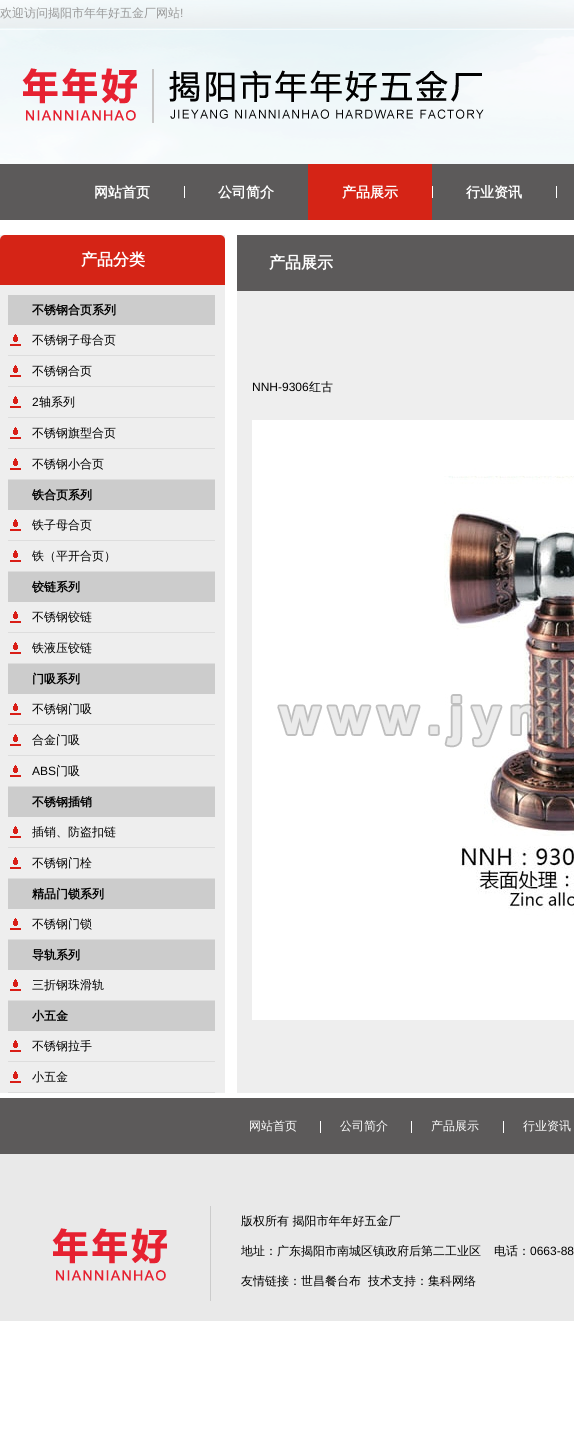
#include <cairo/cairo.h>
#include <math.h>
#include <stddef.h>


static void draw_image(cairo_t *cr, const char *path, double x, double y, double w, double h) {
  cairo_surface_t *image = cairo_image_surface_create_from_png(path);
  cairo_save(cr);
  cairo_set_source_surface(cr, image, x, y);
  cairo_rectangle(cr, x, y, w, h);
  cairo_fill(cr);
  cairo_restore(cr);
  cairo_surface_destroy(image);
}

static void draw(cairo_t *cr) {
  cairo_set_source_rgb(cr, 1, 1, 1);
  cairo_paint(cr);
  draw_image(cr, "images/1.png", 0, 0, 574, 164);
  draw_image(cr, "images/2.png", 22, 68, 462, 55);
  cairo_set_source_rgb(cr, 92 / 255.0, 90 / 255.0, 90 / 255.0);
  cairo_rectangle(cr, 0, 164, 574, 56);
  cairo_fill(cr);
  cairo_set_source_rgb(cr, 1, 1, 1);
  cairo_rectangle(cr, 184, 186, 1, 12);
  cairo_fill(cr);
  cairo_set_source_rgb(cr, 213 / 255.0, 36 / 255.0, 22 / 255.0);
  cairo_rectangle(cr, 308, 164, 124, 56);
  cairo_fill(cr);
  cairo_set_source_rgb(cr, 1, 1, 1);
  cairo_rectangle(cr, 432, 186, 1, 12);
  cairo_fill(cr);
  cairo_rectangle(cr, 556, 186, 1, 12);
  cairo_fill(cr);
  cairo_set_source_rgb(cr, 238 / 255.0, 238 / 255.0, 238 / 255.0);
  cairo_rectangle(cr, 0, 235, 225, 858);
  cairo_fill(cr);
  draw_image(cr, "images/3.png", 0, 235, 225, 50);
  cairo_set_source_rgb(cr, 204 / 255.0, 204 / 255.0, 204 / 255.0);
  cairo_rectangle(cr, 8, 295, 207, 30);
  cairo_fill(cr);
  draw_image(cr, "images/4.png", 10, 334, 11, 12);
  cairo_set_source_rgb(cr, 221 / 255.0, 221 / 255.0, 221 / 255.0);
  cairo_rectangle(cr, 8, 355, 207, 1);
  cairo_fill(cr);
  draw_image(cr, "images/4.png", 10, 365, 11, 12);
  cairo_rectangle(cr, 8, 386, 207, 1);
  cairo_fill(cr);
  draw_image(cr, "images/4.png", 10, 396, 11, 12);
  cairo_rectangle(cr, 8, 417, 207, 1);
  cairo_fill(cr);
  draw_image(cr, "images/4.png", 10, 427, 11, 12);
  cairo_rectangle(cr, 8, 448, 207, 1);
  cairo_fill(cr);
  draw_image(cr, "images/4.png", 10, 458, 11, 12);
  cairo_rectangle(cr, 8, 479, 207, 1);
  cairo_fill(cr);
  cairo_set_source_rgb(cr, 204 / 255.0, 204 / 255.0, 204 / 255.0);
  cairo_rectangle(cr, 8, 480, 207, 30);
  cairo_fill(cr);
  draw_image(cr, "images/4.png", 10, 519, 11, 12);
  cairo_set_source_rgb(cr, 221 / 255.0, 221 / 255.0, 221 / 255.0);
  cairo_rectangle(cr, 8, 540, 207, 1);
  cairo_fill(cr);
  draw_image(cr, "images/4.png", 10, 550, 11, 12);
  cairo_rectangle(cr, 8, 571, 207, 1);
  cairo_fill(cr);
  cairo_set_source_rgb(cr, 204 / 255.0, 204 / 255.0, 204 / 255.0);
  cairo_rectangle(cr, 8, 572, 207, 30);
  cairo_fill(cr);
  draw_image(cr, "images/4.png", 10, 611, 11, 12);
  cairo_set_source_rgb(cr, 221 / 255.0, 221 / 255.0, 221 / 255.0);
  cairo_rectangle(cr, 8, 632, 207, 1);
  cairo_fill(cr);
  draw_image(cr, "images/4.png", 10, 642, 11, 12);
  cairo_rectangle(cr, 8, 663, 207, 1);
  cairo_fill(cr);
  cairo_set_source_rgb(cr, 204 / 255.0, 204 / 255.0, 204 / 255.0);
  cairo_rectangle(cr, 8, 664, 207, 30);
  cairo_fill(cr);
  draw_image(cr, "images/4.png", 10, 703, 11, 12);
  cairo_set_source_rgb(cr, 221 / 255.0, 221 / 255.0, 221 / 255.0);
  cairo_rectangle(cr, 8, 724, 207, 1);
  cairo_fill(cr);
  draw_image(cr, "images/4.png", 10, 734, 11, 12);
  cairo_rectangle(cr, 8, 755, 207, 1);
  cairo_fill(cr);
  draw_image(cr, "images/4.png", 10, 765, 11, 12);
  cairo_rectangle(cr, 8, 786, 207, 1);
  cairo_fill(cr);
  cairo_set_source_rgb(cr, 204 / 255.0, 204 / 255.0, 204 / 255.0);
  cairo_rectangle(cr, 8, 787, 207, 30);
  cairo_fill(cr);
  draw_image(cr, "images/4.png", 10, 826, 11, 12);
  cairo_set_source_rgb(cr, 221 / 255.0, 221 / 255.0, 221 / 255.0);
  cairo_rectangle(cr, 8, 847, 207, 1);
  cairo_fill(cr);
  draw_image(cr, "images/4.png", 10, 857, 11, 12);
  cairo_rectangle(cr, 8, 878, 207, 1);
  cairo_fill(cr);
  cairo_set_source_rgb(cr, 204 / 255.0, 204 / 255.0, 204 / 255.0);
  cairo_rectangle(cr, 8, 879, 207, 30);
  cairo_fill(cr);
  draw_image(cr, "images/4.png", 10, 918, 11, 12);
  cairo_set_source_rgb(cr, 221 / 255.0, 221 / 255.0, 221 / 255.0);
  cairo_rectangle(cr, 8, 939, 207, 1);
  cairo_fill(cr);
  cairo_set_source_rgb(cr, 204 / 255.0, 204 / 255.0, 204 / 255.0);
  cairo_rectangle(cr, 8, 940, 207, 30);
  cairo_fill(cr);
  draw_image(cr, "images/4.png", 10, 979, 11, 12);
  cairo_set_source_rgb(cr, 221 / 255.0, 221 / 255.0, 221 / 255.0);
  cairo_rectangle(cr, 8, 1000, 207, 1);
  cairo_fill(cr);
  cairo_set_source_rgb(cr, 204 / 255.0, 204 / 255.0, 204 / 255.0);
  cairo_rectangle(cr, 8, 1001, 207, 30);
  cairo_fill(cr);
  draw_image(cr, "images/4.png", 10, 1040, 11, 12);
  cairo_set_source_rgb(cr, 221 / 255.0, 221 / 255.0, 221 / 255.0);
  cairo_rectangle(cr, 8, 1061, 207, 1);
  cairo_fill(cr);
  draw_image(cr, "images/4.png", 10, 1071, 11, 12);
  cairo_rectangle(cr, 8, 1092, 207, 1);
  cairo_fill(cr);
  cairo_set_source_rgb(cr, 238 / 255.0, 238 / 255.0, 238 / 255.0);
  cairo_rectangle(cr, 237, 291, 337, 802);
  cairo_fill(cr);
  cairo_set_source_rgb(cr, 92 / 255.0, 90 / 255.0, 90 / 255.0);
  cairo_rectangle(cr, 237, 235, 337, 56);
  cairo_fill(cr);
  draw_image(cr, "images/5.png", 252, 420, 322, 600);
  cairo_rectangle(cr, 0, 1098, 574, 56);
  cairo_fill(cr);
  cairo_set_source_rgb(cr, 1, 1, 1);
  cairo_rectangle(cr, 320, 1121, 1, 12);
  cairo_fill(cr);
  cairo_rectangle(cr, 411, 1121, 1, 12);
  cairo_fill(cr);
  cairo_rectangle(cr, 503, 1121, 1, 12);
  cairo_fill(cr);
  cairo_set_source_rgb(cr, 233 / 255.0, 233 / 255.0, 233 / 255.0);
  cairo_rectangle(cr, 0, 1154, 574, 167);
  cairo_fill(cr);
  cairo_set_source_rgb(cr, 204 / 255.0, 204 / 255.0, 204 / 255.0);
  cairo_rectangle(cr, 210, 1206, 1, 95);
  cairo_fill(cr);
  draw_image(cr, "images/6.png", 52, 1228, 115, 53);
  cairo_select_font_face(cr, "WenQuanYi Zen Hei Medium", CAIRO_FONT_SLANT_NORMAL, CAIRO_FONT_WEIGHT_NORMAL);
  cairo_set_font_size(cr, 12);
  cairo_set_source_rgb(cr, 153 / 255.0, 153 / 255.0, 153 / 255.0);
  cairo_move_to(cr, 0, 17);
  cairo_show_text(cr, "欢迎访问揭阳市年年好五金厂网站");
  cairo_select_font_face(cr, "Liberation Sans", CAIRO_FONT_SLANT_NORMAL, CAIRO_FONT_WEIGHT_NORMAL);
  cairo_move_to(cr, 180, 17);
  cairo_show_text(cr, "!");
  cairo_select_font_face(cr, "WenQuanYi Zen Hei", CAIRO_FONT_SLANT_NORMAL, CAIRO_FONT_WEIGHT_BOLD);
  cairo_set_font_size(cr, 14);
  cairo_set_source_rgb(cr, 1, 1, 1);
  cairo_move_to(cr, 94, 197);
  cairo_show_text(cr, "网站首页");
  cairo_move_to(cr, 218, 197);
  cairo_show_text(cr, "公司简介");
  cairo_move_to(cr, 342, 197);
  cairo_show_text(cr, "产品展示");
  cairo_move_to(cr, 466, 197);
  cairo_show_text(cr, "行业资讯");
  cairo_set_font_size(cr, 16);
  cairo_move_to(cr, 81, 265);
  cairo_show_text(cr, "产品分类");
  cairo_set_font_size(cr, 12);
  cairo_set_source_rgb(cr, 0, 0, 0);
  cairo_move_to(cr, 32, 314);
  cairo_show_text(cr, "不锈钢合页系列");
  cairo_select_font_face(cr, "WenQuanYi Zen Hei Medium", CAIRO_FONT_SLANT_NORMAL, CAIRO_FONT_WEIGHT_NORMAL);
  cairo_move_to(cr, 32, 344);
  cairo_show_text(cr, "不锈钢子母合页");
  cairo_move_to(cr, 32, 375);
  cairo_show_text(cr, "不锈钢合页");
  cairo_select_font_face(cr, "Liberation Sans", CAIRO_FONT_SLANT_NORMAL, CAIRO_FONT_WEIGHT_NORMAL);
  cairo_move_to(cr, 32, 406);
  cairo_show_text(cr, "2");
  cairo_select_font_face(cr, "WenQuanYi Zen Hei Medium", CAIRO_FONT_SLANT_NORMAL, CAIRO_FONT_WEIGHT_NORMAL);
  cairo_move_to(cr, 39, 406);
  cairo_show_text(cr, "轴系列");
  cairo_move_to(cr, 32, 437);
  cairo_show_text(cr, "不锈钢旗型合页");
  cairo_move_to(cr, 32, 468);
  cairo_show_text(cr, "不锈钢小合页");
  cairo_select_font_face(cr, "WenQuanYi Zen Hei", CAIRO_FONT_SLANT_NORMAL, CAIRO_FONT_WEIGHT_BOLD);
  cairo_move_to(cr, 32, 499);
  cairo_show_text(cr, "铁合页系列");
  cairo_select_font_face(cr, "WenQuanYi Zen Hei Medium", CAIRO_FONT_SLANT_NORMAL, CAIRO_FONT_WEIGHT_NORMAL);
  cairo_move_to(cr, 32, 529);
  cairo_show_text(cr, "铁子母合页");
  cairo_move_to(cr, 32, 560);
  cairo_show_text(cr, "铁（平开合页）");
  cairo_select_font_face(cr, "WenQuanYi Zen Hei", CAIRO_FONT_SLANT_NORMAL, CAIRO_FONT_WEIGHT_BOLD);
  cairo_move_to(cr, 32, 591);
  cairo_show_text(cr, "铰链系列");
  cairo_select_font_face(cr, "WenQuanYi Zen Hei Medium", CAIRO_FONT_SLANT_NORMAL, CAIRO_FONT_WEIGHT_NORMAL);
  cairo_move_to(cr, 32, 621);
  cairo_show_text(cr, "不锈钢铰链");
  cairo_move_to(cr, 32, 652);
  cairo_show_text(cr, "铁液压铰链");
  cairo_select_font_face(cr, "WenQuanYi Zen Hei", CAIRO_FONT_SLANT_NORMAL, CAIRO_FONT_WEIGHT_BOLD);
  cairo_move_to(cr, 32, 683);
  cairo_show_text(cr, "门吸系列");
  cairo_select_font_face(cr, "WenQuanYi Zen Hei Medium", CAIRO_FONT_SLANT_NORMAL, CAIRO_FONT_WEIGHT_NORMAL);
  cairo_move_to(cr, 32, 713);
  cairo_show_text(cr, "不锈钢门吸");
  cairo_move_to(cr, 32, 744);
  cairo_show_text(cr, "合金门吸");
  cairo_select_font_face(cr, "Liberation Sans", CAIRO_FONT_SLANT_NORMAL, CAIRO_FONT_WEIGHT_NORMAL);
  cairo_move_to(cr, 32, 775);
  cairo_show_text(cr, "ABS");
  cairo_select_font_face(cr, "WenQuanYi Zen Hei Medium", CAIRO_FONT_SLANT_NORMAL, CAIRO_FONT_WEIGHT_NORMAL);
  cairo_move_to(cr, 56, 775);
  cairo_show_text(cr, "门吸");
  cairo_select_font_face(cr, "WenQuanYi Zen Hei", CAIRO_FONT_SLANT_NORMAL, CAIRO_FONT_WEIGHT_BOLD);
  cairo_move_to(cr, 32, 806);
  cairo_show_text(cr, "不锈钢插销");
  cairo_select_font_face(cr, "WenQuanYi Zen Hei Medium", CAIRO_FONT_SLANT_NORMAL, CAIRO_FONT_WEIGHT_NORMAL);
  cairo_move_to(cr, 32, 836);
  cairo_show_text(cr, "插销、防盗扣链");
  cairo_move_to(cr, 32, 867);
  cairo_show_text(cr, "不锈钢门栓");
  cairo_select_font_face(cr, "WenQuanYi Zen Hei", CAIRO_FONT_SLANT_NORMAL, CAIRO_FONT_WEIGHT_BOLD);
  cairo_move_to(cr, 32, 898);
  cairo_show_text(cr, "精品门锁系列");
  cairo_select_font_face(cr, "WenQuanYi Zen Hei Medium", CAIRO_FONT_SLANT_NORMAL, CAIRO_FONT_WEIGHT_NORMAL);
  cairo_move_to(cr, 32, 928);
  cairo_show_text(cr, "不锈钢门锁");
  cairo_select_font_face(cr, "WenQuanYi Zen Hei", CAIRO_FONT_SLANT_NORMAL, CAIRO_FONT_WEIGHT_BOLD);
  cairo_move_to(cr, 32, 959);
  cairo_show_text(cr, "导轨系列");
  cairo_select_font_face(cr, "WenQuanYi Zen Hei Medium", CAIRO_FONT_SLANT_NORMAL, CAIRO_FONT_WEIGHT_NORMAL);
  cairo_move_to(cr, 32, 989);
  cairo_show_text(cr, "三折钢珠滑轨");
  cairo_select_font_face(cr, "WenQuanYi Zen Hei", CAIRO_FONT_SLANT_NORMAL, CAIRO_FONT_WEIGHT_BOLD);
  cairo_move_to(cr, 32, 1020);
  cairo_show_text(cr, "小五金");
  cairo_select_font_face(cr, "WenQuanYi Zen Hei Medium", CAIRO_FONT_SLANT_NORMAL, CAIRO_FONT_WEIGHT_NORMAL);
  cairo_move_to(cr, 32, 1050);
  cairo_show_text(cr, "不锈钢拉手");
  cairo_move_to(cr, 32, 1081);
  cairo_show_text(cr, "小五金");
  cairo_select_font_face(cr, "WenQuanYi Zen Hei", CAIRO_FONT_SLANT_NORMAL, CAIRO_FONT_WEIGHT_BOLD);
  cairo_set_font_size(cr, 16);
  cairo_set_source_rgb(cr, 1, 1, 1);
  cairo_move_to(cr, 269, 268);
  cairo_show_text(cr, "产品展示");
  cairo_select_font_face(cr, "Liberation Sans", CAIRO_FONT_SLANT_NORMAL, CAIRO_FONT_WEIGHT_NORMAL);
  cairo_set_font_size(cr, 12);
  cairo_set_source_rgb(cr, 0, 0, 0);
  cairo_move_to(cr, 252, 391);
  cairo_show_text(cr, "NNH-9306");
  cairo_select_font_face(cr, "WenQuanYi Zen Hei Medium", CAIRO_FONT_SLANT_NORMAL, CAIRO_FONT_WEIGHT_NORMAL);
  cairo_move_to(cr, 309, 391);
  cairo_show_text(cr, "红古");
  cairo_set_source_rgb(cr, 1, 1, 1);
  cairo_move_to(cr, 249, 1130);
  cairo_show_text(cr, "网站首页");
  cairo_move_to(cr, 340, 1130);
  cairo_show_text(cr, "公司简介");
  cairo_move_to(cr, 431, 1130);
  cairo_show_text(cr, "产品展示");
  cairo_move_to(cr, 523, 1130);
  cairo_show_text(cr, "行业资讯");
  cairo_set_source_rgb(cr, 0, 0, 0);
  cairo_move_to(cr, 241, 1225);
  cairo_show_text(cr, "版权所有 揭阳市年年好五金厂");
  cairo_move_to(cr, 241, 1255);
  cairo_show_text(cr, "地址：广东揭阳市南城区镇政府后第二工业区");
  cairo_move_to(cr, 494, 1255);
  cairo_show_text(cr, "电话：");
  cairo_select_font_face(cr, "Liberation Sans", CAIRO_FONT_SLANT_NORMAL, CAIRO_FONT_WEIGHT_NORMAL);
  cairo_move_to(cr, 530, 1255);
  cairo_show_text(cr, "0663-88");
  cairo_select_font_face(cr, "WenQuanYi Zen Hei Medium", CAIRO_FONT_SLANT_NORMAL, CAIRO_FONT_WEIGHT_NORMAL);
  cairo_move_to(cr, 241, 1285);
  cairo_show_text(cr, "友情链接：世昌餐台布");
  cairo_move_to(cr, 368, 1285);
  cairo_show_text(cr, "技术支持：集科网络");
}

int main(void) {
  cairo_surface_t *surface = cairo_image_surface_create(CAIRO_FORMAT_RGB24, 574, 1435);
  cairo_t *cr = cairo_create(surface);
  cairo_font_options_t *options = cairo_font_options_create();
  cairo_font_options_set_hint_metrics(options, CAIRO_HINT_METRICS_OFF);
  cairo_font_options_set_hint_style(options, CAIRO_HINT_STYLE_NONE);
  cairo_set_font_options(cr, options);
  cairo_set_miter_limit(cr, 4);
  draw(cr);
  cairo_surface_write_to_png(surface, "out.png");
  cairo_font_options_destroy(options);
  cairo_destroy(cr);
  cairo_surface_destroy(surface);
  return 0;
}
